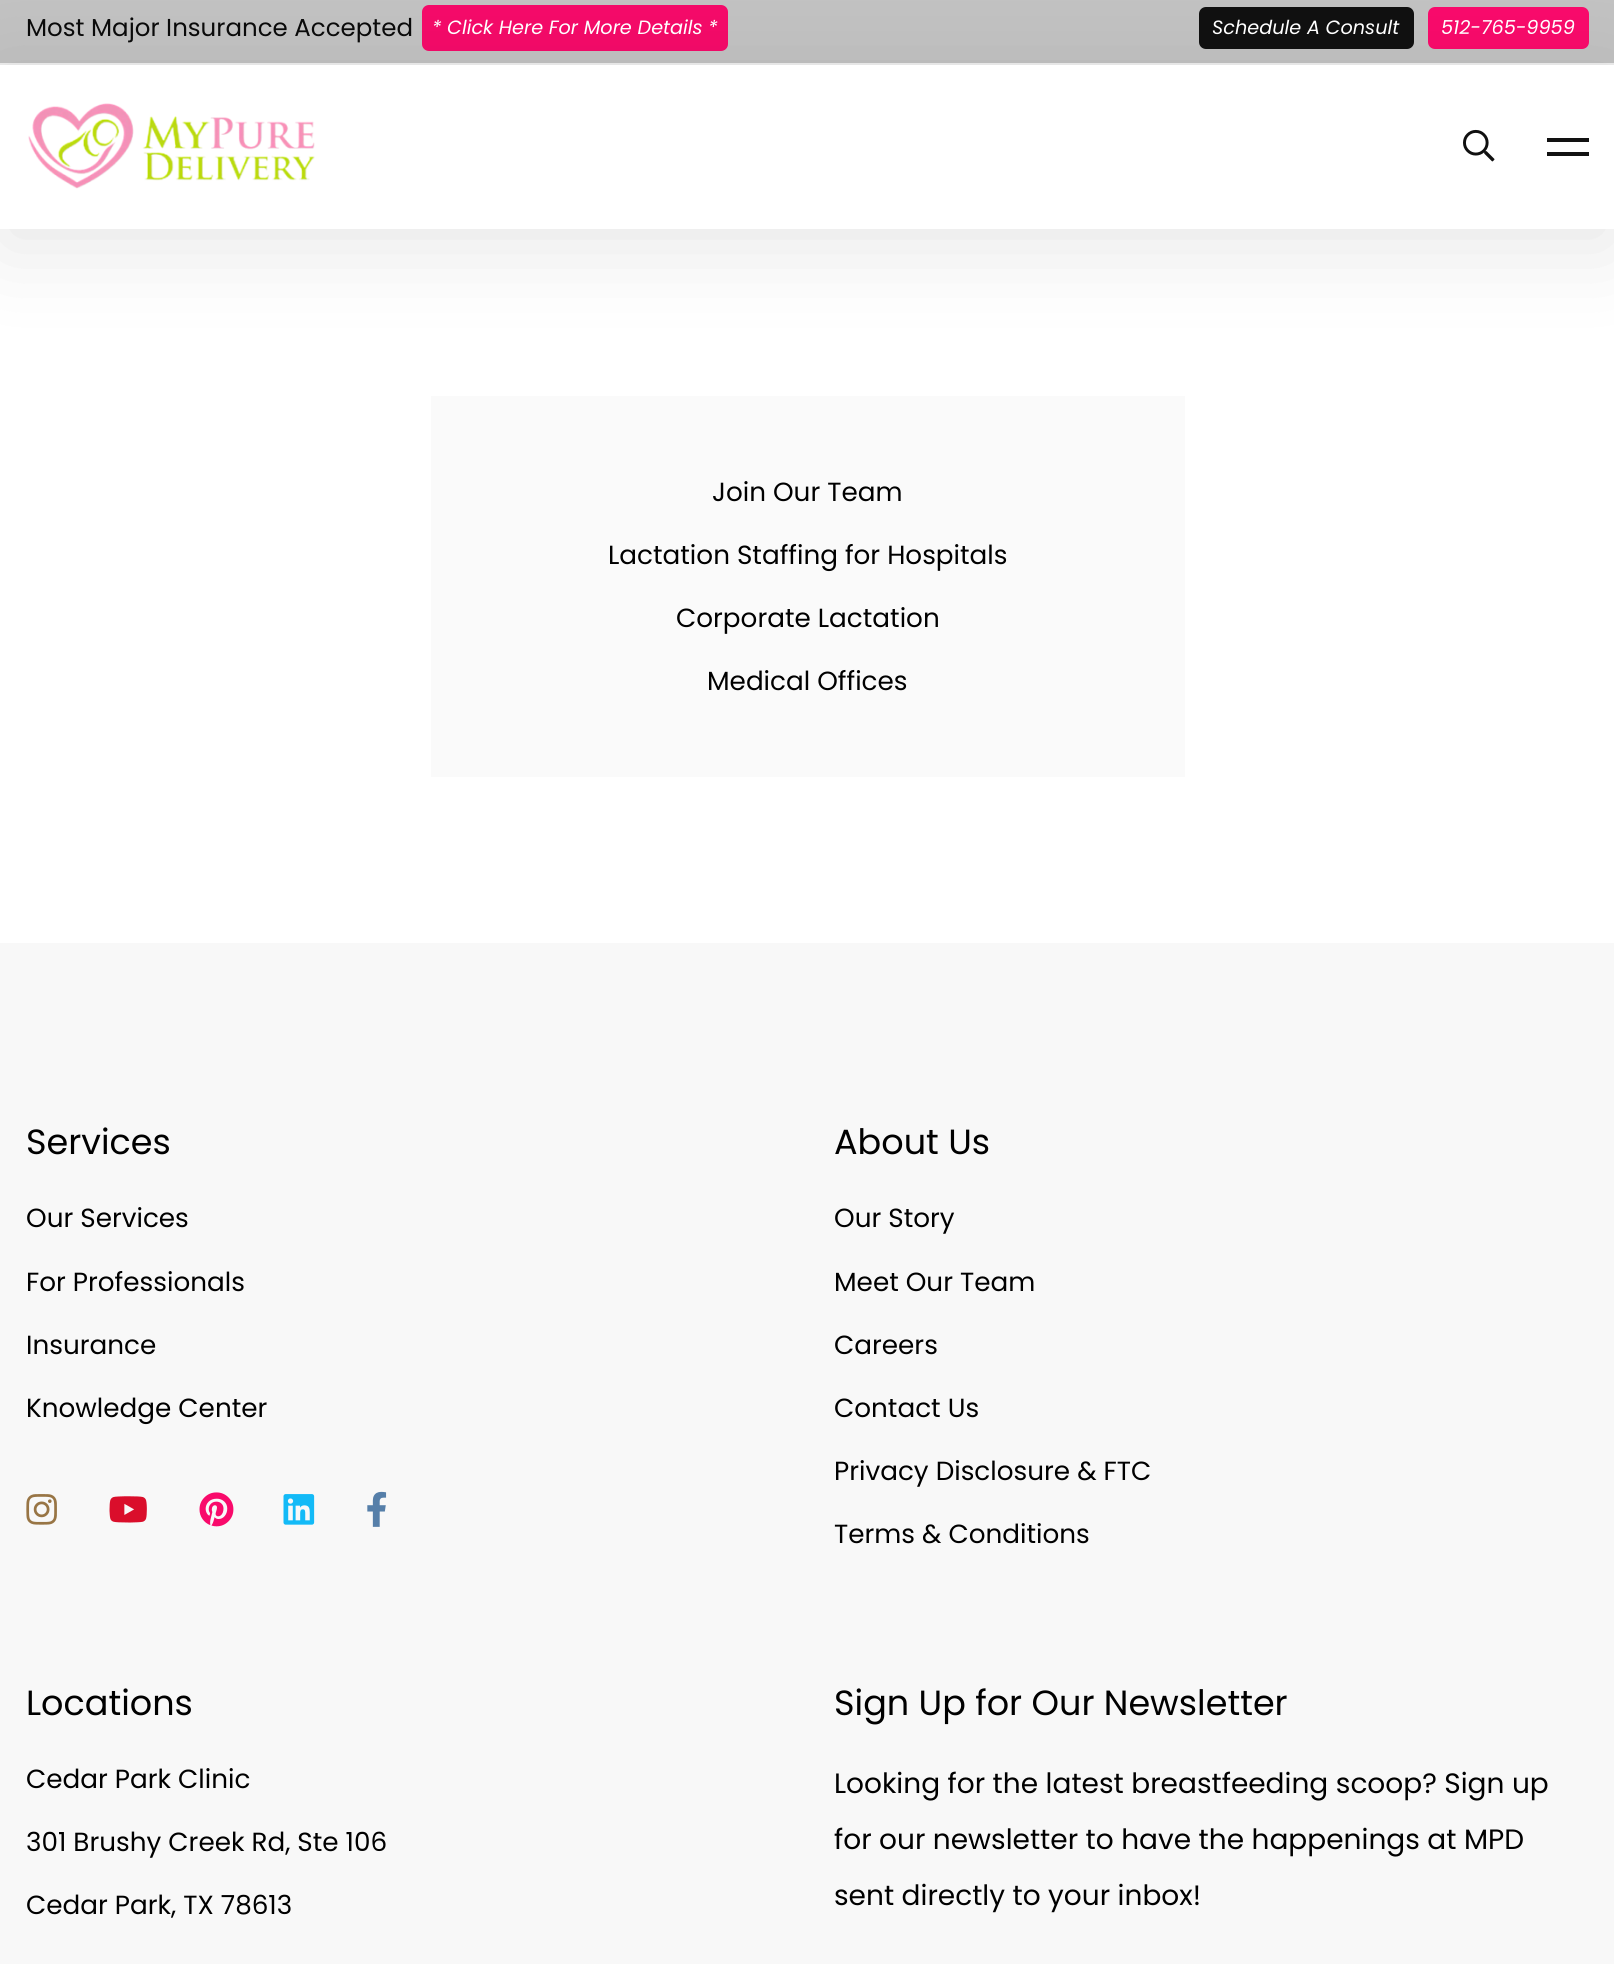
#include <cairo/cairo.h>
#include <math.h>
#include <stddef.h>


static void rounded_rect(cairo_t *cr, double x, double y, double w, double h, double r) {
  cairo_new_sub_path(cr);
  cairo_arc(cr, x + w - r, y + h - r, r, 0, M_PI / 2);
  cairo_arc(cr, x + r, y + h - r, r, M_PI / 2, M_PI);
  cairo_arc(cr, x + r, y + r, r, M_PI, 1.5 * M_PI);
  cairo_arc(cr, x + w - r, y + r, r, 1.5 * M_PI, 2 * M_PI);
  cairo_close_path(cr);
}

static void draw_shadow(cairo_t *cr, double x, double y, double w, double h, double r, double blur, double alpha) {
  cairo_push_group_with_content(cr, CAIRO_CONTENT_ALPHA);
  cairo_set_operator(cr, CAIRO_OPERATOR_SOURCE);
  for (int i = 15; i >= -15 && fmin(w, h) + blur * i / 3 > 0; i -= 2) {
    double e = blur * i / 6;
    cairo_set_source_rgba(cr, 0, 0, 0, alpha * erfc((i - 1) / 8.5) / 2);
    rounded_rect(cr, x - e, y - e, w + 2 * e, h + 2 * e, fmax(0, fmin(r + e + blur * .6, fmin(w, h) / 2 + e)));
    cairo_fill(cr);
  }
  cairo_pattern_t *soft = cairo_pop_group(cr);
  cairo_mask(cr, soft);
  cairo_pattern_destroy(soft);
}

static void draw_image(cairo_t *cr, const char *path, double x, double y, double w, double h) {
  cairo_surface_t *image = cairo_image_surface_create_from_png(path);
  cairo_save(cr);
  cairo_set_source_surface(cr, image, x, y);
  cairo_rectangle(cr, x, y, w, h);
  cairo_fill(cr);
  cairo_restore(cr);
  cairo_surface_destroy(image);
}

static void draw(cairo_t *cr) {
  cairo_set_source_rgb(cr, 1, 1, 1);
  cairo_paint(cr);
  cairo_set_source_rgb(cr, 194 / 255.0, 194 / 255.0, 194 / 255.0);
  cairo_rectangle(cr, 0, 0, 1614, 63);
  cairo_fill(cr);
  cairo_set_source_rgb(cr, 238 / 255.0, 238 / 255.0, 238 / 255.0);
  cairo_rectangle(cr, 0, 63, 1614, 2);
  cairo_fill(cr);
  cairo_set_source_rgb(cr, 245 / 255.0, 10 / 255.0, 105 / 255.0);
  rounded_rect(cr, 422, 5, 306, 46, 7);
  cairo_fill(cr);
  cairo_set_source_rgb(cr, 16 / 255.0, 16 / 255.0, 16 / 255.0);
  rounded_rect(cr, 1199, 7, 215, 42, 7);
  cairo_fill(cr);
  cairo_set_source_rgb(cr, 249 / 255.0, 10 / 255.0, 107 / 255.0);
  rounded_rect(cr, 1428, 7, 161, 42, 7);
  cairo_fill(cr);
  cairo_save(cr);
  cairo_set_fill_rule(cr, CAIRO_FILL_RULE_EVEN_ODD);
  cairo_new_path(cr);
  cairo_move_to(cr, 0, 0);
  cairo_line_to(cr, 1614, 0);
  cairo_line_to(cr, 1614, 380);
  cairo_line_to(cr, 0, 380);
  cairo_close_path(cr);
  cairo_move_to(cr, 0, 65);
  cairo_line_to(cr, 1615, 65);
  cairo_line_to(cr, 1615, 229);
  cairo_line_to(cr, 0, 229);
  cairo_close_path(cr);
  cairo_clip(cr);
  cairo_set_source_rgb(cr, 0, 0, 0);
  draw_shadow(cr, 0, 82, 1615, 165, 0, 44, 0.1);
  cairo_restore(cr);
  draw_image(cr, "images/1.png", 28, 103, 287, 86);
  draw_image(cr, "images/2.png", 1463, 129, 32, 33);
  cairo_set_source_rgb(cr, 18 / 255.0, 18 / 255.0, 18 / 255.0);
  cairo_rectangle(cr, 1547, 138, 42, 4);
  cairo_fill(cr);
  cairo_rectangle(cr, 1547, 152, 42, 4);
  cairo_fill(cr);
  cairo_set_source_rgb(cr, 250 / 255.0, 250 / 255.0, 250 / 255.0);
  cairo_rectangle(cr, 431, 396, 754, 381);
  cairo_fill(cr);
  cairo_set_source_rgb(cr, 248 / 255.0, 248 / 255.0, 248 / 255.0);
  cairo_rectangle(cr, 0, 943, 1614, 1021);
  cairo_fill(cr);
  draw_image(cr, "images/3.png", 26, 1494, 31, 31);
  draw_image(cr, "images/4.png", 109, 1496, 38, 27);
  draw_image(cr, "images/5.png", 199, 1492, 35, 35);
  draw_image(cr, "images/6.png", 283, 1494, 32, 31);
  draw_image(cr, "images/7.png", 367, 1491, 20, 36);
  cairo_select_font_face(cr, "Poppins", CAIRO_FONT_SLANT_NORMAL, CAIRO_FONT_WEIGHT_NORMAL);
  cairo_set_font_size(cr, 24.5);
  cairo_set_source_rgb(cr, 10 / 255.0, 10 / 255.0, 10 / 255.0);
  cairo_move_to(cr, 26, 36);
  cairo_show_text(cr, "Most Major Insurance Accepted");
  cairo_select_font_face(cr, "Poppins", CAIRO_FONT_SLANT_ITALIC, CAIRO_FONT_WEIGHT_NORMAL);
  cairo_set_font_size(cr, 19.25);
  cairo_set_source_rgb(cr, 1, 1, 1);
  cairo_move_to(cr, 432, 34);
  cairo_show_text(cr, "* Click Here For More Details *");
  cairo_move_to(cr, 1212, 34);
  cairo_show_text(cr, "Schedule A Consult");
  cairo_move_to(cr, 1441, 34);
  cairo_show_text(cr, "512-765-9959");
  cairo_select_font_face(cr, "Poppins", CAIRO_FONT_SLANT_NORMAL, CAIRO_FONT_WEIGHT_NORMAL);
  cairo_set_font_size(cr, 26.25);
  cairo_set_source_rgb(cr, 0, 0, 0);
  cairo_move_to(cr, 712, 501);
  cairo_show_text(cr, "Join Our Team");
  cairo_move_to(cr, 608, 564);
  cairo_show_text(cr, "Lactation Staffing for Hospitals");
  cairo_move_to(cr, 676, 627);
  cairo_show_text(cr, "Corporate Lactation");
  cairo_move_to(cr, 707, 690);
  cairo_show_text(cr, "Medical Offices");
  cairo_set_font_size(cr, 35);
  cairo_move_to(cr, 26, 1154);
  cairo_show_text(cr, "Services");
  cairo_set_font_size(cr, 26.25);
  cairo_move_to(cr, 26, 1227);
  cairo_show_text(cr, "Our Services");
  cairo_move_to(cr, 26, 1291);
  cairo_show_text(cr, "For Professionals");
  cairo_move_to(cr, 26, 1354);
  cairo_show_text(cr, "Insurance");
  cairo_move_to(cr, 26, 1417);
  cairo_show_text(cr, "Knowledge Center");
  cairo_set_font_size(cr, 35);
  cairo_move_to(cr, 834, 1154);
  cairo_show_text(cr, "About Us");
  cairo_set_font_size(cr, 26.25);
  cairo_move_to(cr, 834, 1227);
  cairo_show_text(cr, "Our Story");
  cairo_move_to(cr, 834, 1291);
  cairo_show_text(cr, "Meet Our Team");
  cairo_move_to(cr, 834, 1354);
  cairo_show_text(cr, "Careers");
  cairo_move_to(cr, 834, 1417);
  cairo_show_text(cr, "Contact Us");
  cairo_move_to(cr, 834, 1480);
  cairo_show_text(cr, "Privacy Disclosure & FTC");
  cairo_move_to(cr, 834, 1543);
  cairo_show_text(cr, "Terms & Conditions");
  cairo_set_font_size(cr, 35);
  cairo_move_to(cr, 26, 1715);
  cairo_show_text(cr, "Locations");
  cairo_set_font_size(cr, 26.25);
  cairo_move_to(cr, 26, 1788);
  cairo_show_text(cr, "Cedar Park Clinic");
  cairo_move_to(cr, 26, 1851);
  cairo_show_text(cr, "301 Brushy Creek Rd, Ste 106");
  cairo_move_to(cr, 26, 1914);
  cairo_show_text(cr, "Cedar Park, TX 78613");
  cairo_set_font_size(cr, 35);
  cairo_move_to(cr, 834, 1715);
  cairo_show_text(cr, "Sign Up for Our Newsletter");
  cairo_set_font_size(cr, 28);
  cairo_move_to(cr, 834, 1793);
  cairo_show_text(cr, "Looking for the latest breastfeeding scoop? Sign up");
  cairo_move_to(cr, 834, 1849);
  cairo_show_text(cr, "for our newsletter to have the happenings at MPD");
  cairo_move_to(cr, 834, 1905);
  cairo_show_text(cr, "sent directly to your inbox!");
}

int main(void) {
  cairo_surface_t *surface = cairo_image_surface_create(CAIRO_FORMAT_RGB24, 1614, 1964);
  cairo_t *cr = cairo_create(surface);
  cairo_font_options_t *options = cairo_font_options_create();
  cairo_font_options_set_hint_metrics(options, CAIRO_HINT_METRICS_OFF);
  cairo_font_options_set_hint_style(options, CAIRO_HINT_STYLE_NONE);
  cairo_set_font_options(cr, options);
  cairo_set_miter_limit(cr, 4);
  draw(cr);
  cairo_surface_write_to_png(surface, "out.png");
  cairo_font_options_destroy(options);
  cairo_destroy(cr);
  cairo_surface_destroy(surface);
  return 0;
}
